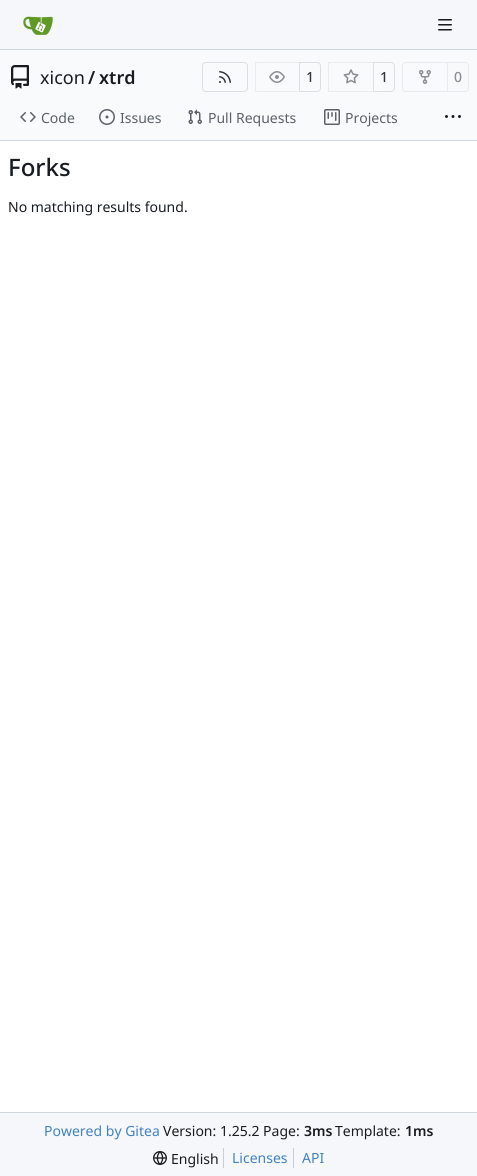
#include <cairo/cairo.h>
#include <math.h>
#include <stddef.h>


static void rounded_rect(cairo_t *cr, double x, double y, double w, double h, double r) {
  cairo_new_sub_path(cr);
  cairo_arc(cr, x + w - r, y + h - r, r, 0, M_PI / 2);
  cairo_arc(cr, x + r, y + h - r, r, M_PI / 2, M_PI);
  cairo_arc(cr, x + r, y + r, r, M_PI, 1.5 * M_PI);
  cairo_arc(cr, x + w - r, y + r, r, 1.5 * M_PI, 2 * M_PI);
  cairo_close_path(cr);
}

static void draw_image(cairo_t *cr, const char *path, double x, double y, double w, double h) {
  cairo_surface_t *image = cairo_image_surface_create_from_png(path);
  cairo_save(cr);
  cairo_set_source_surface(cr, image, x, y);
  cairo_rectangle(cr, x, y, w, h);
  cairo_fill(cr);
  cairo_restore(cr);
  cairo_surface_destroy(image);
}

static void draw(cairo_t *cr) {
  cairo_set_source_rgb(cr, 1, 1, 1);
  cairo_paint(cr);
  cairo_set_source_rgb(cr, 246 / 255.0, 247 / 255.0, 250 / 255.0);
  cairo_rectangle(cr, 0, 0, 477, 49);
  cairo_fill(cr);
  cairo_set_source_rgb(cr, 208 / 255.0, 215 / 255.0, 222 / 255.0);
  cairo_rectangle(cr, 0, 49, 477, 1);
  cairo_fill(cr);
  draw_image(cr, "images/1.png", 23, 16, 30, 19);
  draw_image(cr, "images/2.png", 438, 19, 14, 12);
  cairo_set_source_rgb(cr, 249 / 255.0, 250 / 255.0, 251 / 255.0);
  cairo_rectangle(cr, 0, 50, 477, 90);
  cairo_fill(cr);
  draw_image(cr, "images/3.png", 11, 65, 18, 24);
  rounded_rect(cr, 202.5, 62.5, 45, 29, 3.5);
  cairo_set_source_rgb(cr, 221 / 255.0, 222 / 255.0, 225 / 255.0);
  cairo_set_line_width(cr, 1);
  cairo_stroke(cr);
  draw_image(cr, "images/4.png", 219, 71, 12, 12);
  cairo_new_path(cr);
  cairo_move_to(cr, 299.5, 62.5);
  cairo_line_to(cr, 317, 62.5);
  cairo_curve_to(cr, 319, 62.5, 320.5, 64, 320.5, 66);
  cairo_line_to(cr, 320.5, 88);
  cairo_curve_to(cr, 320.5, 90, 319, 91.5, 317, 91.5);
  cairo_line_to(cr, 299.5, 91.5);
  cairo_close_path(cr);
  cairo_stroke(cr);
  cairo_set_source_rgba(cr, 248 / 255.0, 249 / 255.0, 251 / 255.0, 0.55);
  cairo_new_path(cr);
  cairo_move_to(cr, 259, 62);
  cairo_line_to(cr, 300, 62);
  cairo_line_to(cr, 300, 92);
  cairo_line_to(cr, 259, 92);
  cairo_curve_to(cr, 257, 92, 255, 90, 255, 88);
  cairo_line_to(cr, 255, 66);
  cairo_curve_to(cr, 255, 64, 257, 62, 259, 62);
  cairo_close_path(cr);
  cairo_fill(cr);
  cairo_rectangle(cr, 255.5, 62.5, 44, 29);
  cairo_set_source_rgba(cr, 0, 0, 23 / 255.0, 0.06);
  cairo_stroke(cr);
  draw_image(cr, "images/5.png", 269, 71, 16, 12);
  cairo_new_path(cr);
  cairo_move_to(cr, 373.5, 62.5);
  cairo_line_to(cr, 391, 62.5);
  cairo_curve_to(cr, 393, 62.5, 394.5, 64, 394.5, 66);
  cairo_line_to(cr, 394.5, 88);
  cairo_curve_to(cr, 394.5, 90, 393, 91.5, 391, 91.5);
  cairo_line_to(cr, 373.5, 91.5);
  cairo_close_path(cr);
  cairo_set_source_rgb(cr, 221 / 255.0, 222 / 255.0, 225 / 255.0);
  cairo_stroke(cr);
  cairo_set_source_rgba(cr, 248 / 255.0, 249 / 255.0, 251 / 255.0, 0.55);
  cairo_new_path(cr);
  cairo_move_to(cr, 332, 62);
  cairo_line_to(cr, 374, 62);
  cairo_line_to(cr, 374, 92);
  cairo_line_to(cr, 332, 92);
  cairo_curve_to(cr, 330, 92, 328, 90, 328, 88);
  cairo_line_to(cr, 328, 66);
  cairo_curve_to(cr, 328, 64, 330, 62, 332, 62);
  cairo_close_path(cr);
  cairo_fill(cr);
  cairo_rectangle(cr, 328.5, 62.5, 45, 29);
  cairo_set_source_rgba(cr, 0, 0, 23 / 255.0, 0.06);
  cairo_stroke(cr);
  draw_image(cr, "images/6.png", 343, 69, 16, 15);
  cairo_new_path(cr);
  cairo_move_to(cr, 406, 62.5);
  cairo_line_to(cr, 447.5, 62.5);
  cairo_line_to(cr, 447.5, 91.5);
  cairo_line_to(cr, 406, 91.5);
  cairo_curve_to(cr, 404, 91.5, 402.5, 90, 402.5, 88);
  cairo_line_to(cr, 402.5, 66);
  cairo_curve_to(cr, 402.5, 64, 404, 62.5, 406, 62.5);
  cairo_close_path(cr);
  cairo_set_source_rgb(cr, 233 / 255.0, 234 / 255.0, 237 / 255.0);
  cairo_stroke(cr);
  draw_image(cr, "images/7.png", 419, 70, 12, 14);
  cairo_set_source_rgb(cr, 248 / 255.0, 249 / 255.0, 251 / 255.0);
  cairo_new_path(cr);
  cairo_move_to(cr, 447.5, 62.5);
  cairo_line_to(cr, 465, 62.5);
  cairo_curve_to(cr, 467, 62.5, 468.5, 64, 468.5, 66);
  cairo_line_to(cr, 468.5, 88);
  cairo_curve_to(cr, 468.5, 90, 467, 91.5, 465, 91.5);
  cairo_line_to(cr, 447.5, 91.5);
  cairo_close_path(cr);
  cairo_fill_preserve(cr);
  cairo_set_source_rgb(cr, 233 / 255.0, 234 / 255.0, 237 / 255.0);
  cairo_stroke(cr);
  draw_image(cr, "images/8.png", 20, 112, 16, 10);
  draw_image(cr, "images/9.png", 99, 109, 16, 16);
  draw_image(cr, "images/10.png", 188, 109, 14, 15);
  draw_image(cr, "images/11.png", 324, 109, 16, 16);
  draw_image(cr, "images/12.png", 445, 115, 16, 3);
  cairo_set_source_rgb(cr, 208 / 255.0, 215 / 255.0, 222 / 255.0);
  cairo_rectangle(cr, 0, 140, 477, 1);
  cairo_fill(cr);
  cairo_set_source_rgb(cr, 246 / 255.0, 247 / 255.0, 250 / 255.0);
  cairo_rectangle(cr, 0, 1113, 477, 63);
  cairo_fill(cr);
  cairo_set_source_rgb(cr, 208 / 255.0, 215 / 255.0, 222 / 255.0);
  cairo_rectangle(cr, 0, 1112, 477, 1);
  cairo_fill(cr);
  draw_image(cr, "images/13.png", 153, 1151, 14, 14);
  cairo_set_source_rgb(cr, 199 / 255.0, 206 / 255.0, 213 / 255.0);
  cairo_rectangle(cr, 223, 1148, 1, 20);
  cairo_fill(cr);
  cairo_rectangle(cr, 293, 1148, 1, 20);
  cairo_fill(cr);
  cairo_select_font_face(cr, "Noto Sans", CAIRO_FONT_SLANT_NORMAL, CAIRO_FONT_WEIGHT_NORMAL);
  cairo_set_font_size(cr, 18);
  cairo_set_source_rgb(cr, 24 / 255.0, 28 / 255.0, 33 / 255.0);
  cairo_move_to(cr, 40, 84);
  cairo_show_text(cr, "xicon");
  cairo_select_font_face(cr, "Noto Sans SemiBold", CAIRO_FONT_SLANT_NORMAL, CAIRO_FONT_WEIGHT_NORMAL);
  cairo_move_to(cr, 88, 84);
  cairo_show_text(cr, "/");
  cairo_move_to(cr, 99, 84);
  cairo_show_text(cr, "xtrd");
  cairo_select_font_face(cr, "Noto Sans Medium", CAIRO_FONT_SLANT_NORMAL, CAIRO_FONT_WEIGHT_NORMAL);
  cairo_set_font_size(cr, 14);
  cairo_set_source_rgb(cr, 48 / 255.0, 54 / 255.0, 59 / 255.0);
  cairo_move_to(cr, 306, 82);
  cairo_show_text(cr, "1");
  cairo_move_to(cr, 380, 82);
  cairo_show_text(cr, "1");
  cairo_set_source_rgb(cr, 138 / 255.0, 142 / 255.0, 145 / 255.0);
  cairo_move_to(cr, 454, 82);
  cairo_show_text(cr, "0");
  cairo_select_font_face(cr, "Noto Sans", CAIRO_FONT_SLANT_NORMAL, CAIRO_FONT_WEIGHT_NORMAL);
  cairo_set_source_rgb(cr, 91 / 255.0, 97 / 255.0, 103 / 255.0);
  cairo_move_to(cr, 41, 123);
  cairo_show_text(cr, "Code");
  cairo_move_to(cr, 120, 123);
  cairo_show_text(cr, "Issues");
  cairo_move_to(cr, 208, 123);
  cairo_show_text(cr, "Pull Requests");
  cairo_move_to(cr, 345, 123);
  cairo_show_text(cr, "Projects");
  cairo_select_font_face(cr, "Noto Sans Medium", CAIRO_FONT_SLANT_NORMAL, CAIRO_FONT_WEIGHT_NORMAL);
  cairo_set_font_size(cr, 24);
  cairo_set_source_rgb(cr, 24 / 255.0, 28 / 255.0, 33 / 255.0);
  cairo_move_to(cr, 8, 176);
  cairo_show_text(cr, "Forks");
  cairo_select_font_face(cr, "Noto Sans", CAIRO_FONT_SLANT_NORMAL, CAIRO_FONT_WEIGHT_NORMAL);
  cairo_set_font_size(cr, 14);
  cairo_move_to(cr, 8, 212);
  cairo_show_text(cr, "No matching results found.");
  cairo_set_source_rgb(cr, 65 / 255.0, 131 / 255.0, 196 / 255.0);
  cairo_move_to(cr, 44, 1136);
  cairo_show_text(cr, "Powered by Gitea");
  cairo_set_source_rgb(cr, 24 / 255.0, 28 / 255.0, 33 / 255.0);
  cairo_move_to(cr, 163, 1136);
  cairo_show_text(cr, "Version: 1.25.2 Page:");
  cairo_select_font_face(cr, "Noto Sans SemiBold", CAIRO_FONT_SLANT_NORMAL, CAIRO_FONT_WEIGHT_NORMAL);
  cairo_move_to(cr, 304, 1136);
  cairo_show_text(cr, "3ms");
  cairo_select_font_face(cr, "Noto Sans", CAIRO_FONT_SLANT_NORMAL, CAIRO_FONT_WEIGHT_NORMAL);
  cairo_move_to(cr, 335, 1136);
  cairo_show_text(cr, "Template:");
  cairo_select_font_face(cr, "Noto Sans SemiBold", CAIRO_FONT_SLANT_NORMAL, CAIRO_FONT_WEIGHT_NORMAL);
  cairo_move_to(cr, 405, 1136);
  cairo_show_text(cr, "1ms");
  cairo_select_font_face(cr, "Noto Sans", CAIRO_FONT_SLANT_NORMAL, CAIRO_FONT_WEIGHT_NORMAL);
  cairo_move_to(cr, 171, 1164);
  cairo_show_text(cr, "English");
  cairo_set_source_rgb(cr, 65 / 255.0, 131 / 255.0, 196 / 255.0);
  cairo_move_to(cr, 232, 1163);
  cairo_show_text(cr, "Licenses");
  cairo_move_to(cr, 302, 1163);
  cairo_show_text(cr, "API");
}

int main(void) {
  cairo_surface_t *surface = cairo_image_surface_create(CAIRO_FORMAT_RGB24, 477, 1176);
  cairo_t *cr = cairo_create(surface);
  cairo_font_options_t *options = cairo_font_options_create();
  cairo_font_options_set_hint_metrics(options, CAIRO_HINT_METRICS_OFF);
  cairo_font_options_set_hint_style(options, CAIRO_HINT_STYLE_NONE);
  cairo_set_font_options(cr, options);
  cairo_set_miter_limit(cr, 4);
  draw(cr);
  cairo_surface_write_to_png(surface, "out.png");
  cairo_font_options_destroy(options);
  cairo_destroy(cr);
  cairo_surface_destroy(surface);
  return 0;
}
